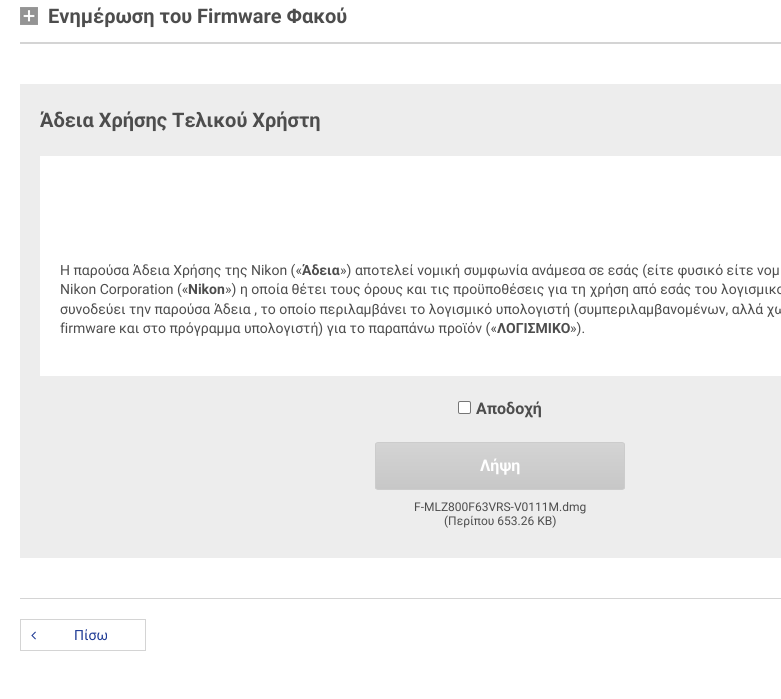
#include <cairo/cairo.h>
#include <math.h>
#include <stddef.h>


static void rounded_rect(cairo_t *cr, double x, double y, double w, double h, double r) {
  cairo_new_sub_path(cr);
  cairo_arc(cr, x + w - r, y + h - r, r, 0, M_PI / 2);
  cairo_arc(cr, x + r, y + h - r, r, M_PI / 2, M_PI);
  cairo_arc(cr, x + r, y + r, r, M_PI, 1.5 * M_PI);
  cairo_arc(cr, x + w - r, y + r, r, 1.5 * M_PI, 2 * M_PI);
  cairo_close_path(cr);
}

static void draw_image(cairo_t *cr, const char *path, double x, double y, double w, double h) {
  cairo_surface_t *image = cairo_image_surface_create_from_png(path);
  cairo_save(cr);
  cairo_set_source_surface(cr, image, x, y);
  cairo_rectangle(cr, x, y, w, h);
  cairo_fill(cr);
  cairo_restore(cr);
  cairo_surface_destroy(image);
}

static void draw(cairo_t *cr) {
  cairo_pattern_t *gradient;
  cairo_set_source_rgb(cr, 1, 1, 1);
  cairo_paint(cr);
  draw_image(cr, "images/1.png", 20, 7, 18, 18);
  cairo_set_source_rgb(cr, 212 / 255.0, 212 / 255.0, 212 / 255.0);
  cairo_rectangle(cr, 20, 42, 761, 2);
  cairo_fill(cr);
  cairo_set_source_rgb(cr, 237 / 255.0, 237 / 255.0, 237 / 255.0);
  cairo_rectangle(cr, 20, 84, 761, 474);
  cairo_fill(cr);
  cairo_set_source_rgb(cr, 1, 1, 1);
  cairo_rectangle(cr, 40, 156, 741, 220);
  cairo_fill(cr);
  rounded_rect(cr, 458.5, 401.5, 12, 12, 1.5);
  cairo_fill_preserve(cr);
  cairo_set_source_rgb(cr, 118 / 255.0, 118 / 255.0, 118 / 255.0);
  cairo_set_line_width(cr, 1);
  cairo_stroke(cr);
  cairo_save(cr);
  rounded_rect(cr, 375, 442, 250, 48, 3);
  cairo_clip(cr);
  gradient = cairo_pattern_create_linear(500, 443, 500, 489);
  cairo_pattern_add_color_stop_rgba(gradient, 0, 212 / 255.0, 212 / 255.0, 212 / 255.0, 1);
  cairo_pattern_add_color_stop_rgba(gradient, 1, 199 / 255.0, 199 / 255.0, 199 / 255.0, 1);
  cairo_set_source(cr, gradient);
  cairo_pattern_destroy(gradient);
  cairo_rectangle(cr, 375, 443, 250, 46);
  cairo_fill(cr);
  cairo_restore(cr);
  rounded_rect(cr, 375.5, 442.5, 249, 47, 2.5);
  cairo_set_source_rgb(cr, 204 / 255.0, 204 / 255.0, 204 / 255.0);
  cairo_stroke(cr);
  cairo_set_source_rgb(cr, 212 / 255.0, 212 / 255.0, 212 / 255.0);
  cairo_rectangle(cr, 20, 598, 761, 1);
  cairo_fill(cr);
  cairo_rectangle(cr, 20.5, 619.5, 125, 31);
  cairo_stroke(cr);
  draw_image(cr, "images/2.png", 31, 631, 5, 9);
  cairo_select_font_face(cr, "Roboto", CAIRO_FONT_SLANT_NORMAL, CAIRO_FONT_WEIGHT_BOLD);
  cairo_set_font_size(cr, 20);
  cairo_set_source_rgb(cr, 77 / 255.0, 77 / 255.0, 77 / 255.0);
  cairo_move_to(cr, 48, 23);
  cairo_show_text(cr, "Ενημέρωση του Firmware Φακού");
  cairo_move_to(cr, 40, 127);
  cairo_show_text(cr, "Άδεια Χρήσης Τελικού Χρήστη");
  cairo_select_font_face(cr, "Roboto", CAIRO_FONT_SLANT_NORMAL, CAIRO_FONT_WEIGHT_NORMAL);
  cairo_set_font_size(cr, 14);
  cairo_move_to(cr, 60, 275);
  cairo_show_text(cr, "Η παρούσα Άδεια Χρήσης της Nikon («");
  cairo_select_font_face(cr, "Roboto", CAIRO_FONT_SLANT_NORMAL, CAIRO_FONT_WEIGHT_BOLD);
  cairo_move_to(cr, 302, 275);
  cairo_show_text(cr, "Άδεια");
  cairo_select_font_face(cr, "Roboto", CAIRO_FONT_SLANT_NORMAL, CAIRO_FONT_WEIGHT_NORMAL);
  cairo_move_to(cr, 340, 275);
  cairo_show_text(cr, "») αποτελεί νομική συμφωνία ανάμεσα σε εσάς (είτε φυσικό είτε νομ");
  cairo_move_to(cr, 60, 294);
  cairo_show_text(cr, "Nikon Corporation («");
  cairo_select_font_face(cr, "Roboto", CAIRO_FONT_SLANT_NORMAL, CAIRO_FONT_WEIGHT_BOLD);
  cairo_move_to(cr, 188, 294);
  cairo_show_text(cr, "Nikon");
  cairo_select_font_face(cr, "Roboto", CAIRO_FONT_SLANT_NORMAL, CAIRO_FONT_WEIGHT_NORMAL);
  cairo_move_to(cr, 225, 294);
  cairo_show_text(cr, "») η οποία θέτει τους όρους και τις προϋποθέσεις για τη χρήση από εσάς του λογισμικο");
  cairo_move_to(cr, 60, 314);
  cairo_show_text(cr, "συνοδεύει την παρούσα Άδεια , το οποίο περιλαμβάνει το λογισμικό υπολογιστή (συμπεριλαμβανομένων, αλλά χω");
  cairo_move_to(cr, 60, 333);
  cairo_show_text(cr, "firmware και στο πρόγραμμα υπολογιστή) για το παραπάνω προϊόν («");
  cairo_select_font_face(cr, "Roboto", CAIRO_FONT_SLANT_NORMAL, CAIRO_FONT_WEIGHT_BOLD);
  cairo_move_to(cr, 497, 333);
  cairo_show_text(cr, "ΛΟΓΙΣΜΙΚΟ");
  cairo_select_font_face(cr, "Roboto", CAIRO_FONT_SLANT_NORMAL, CAIRO_FONT_WEIGHT_NORMAL);
  cairo_move_to(cr, 570, 333);
  cairo_show_text(cr, "»).");
  cairo_select_font_face(cr, "Roboto", CAIRO_FONT_SLANT_NORMAL, CAIRO_FONT_WEIGHT_BOLD);
  cairo_set_font_size(cr, 16);
  cairo_move_to(cr, 476, 414);
  cairo_show_text(cr, "Αποδοχή");
  cairo_set_source_rgb(cr, 1, 1, 1);
  cairo_move_to(cr, 480, 471);
  cairo_show_text(cr, "Λήψη");
  cairo_select_font_face(cr, "Roboto", CAIRO_FONT_SLANT_NORMAL, CAIRO_FONT_WEIGHT_NORMAL);
  cairo_set_font_size(cr, 12);
  cairo_set_source_rgb(cr, 77 / 255.0, 77 / 255.0, 77 / 255.0);
  cairo_move_to(cr, 414, 511);
  cairo_show_text(cr, "F-MLZ800F63VRS-V0111M.dmg");
  cairo_move_to(cr, 444, 525);
  cairo_show_text(cr, "(Περίπου 653.26 KB)");
  cairo_set_font_size(cr, 14);
  cairo_set_source_rgb(cr, 29 / 255.0, 57 / 255.0, 148 / 255.0);
  cairo_move_to(cr, 74, 640);
  cairo_show_text(cr, "Πίσω");
}

int main(void) {
  cairo_surface_t *surface = cairo_image_surface_create(CAIRO_FORMAT_RGB24, 781, 699);
  cairo_t *cr = cairo_create(surface);
  cairo_font_options_t *options = cairo_font_options_create();
  cairo_font_options_set_hint_metrics(options, CAIRO_HINT_METRICS_OFF);
  cairo_font_options_set_hint_style(options, CAIRO_HINT_STYLE_NONE);
  cairo_set_font_options(cr, options);
  cairo_set_miter_limit(cr, 4);
  draw(cr);
  cairo_surface_write_to_png(surface, "out.png");
  cairo_font_options_destroy(options);
  cairo_destroy(cr);
  cairo_surface_destroy(surface);
  return 0;
}
